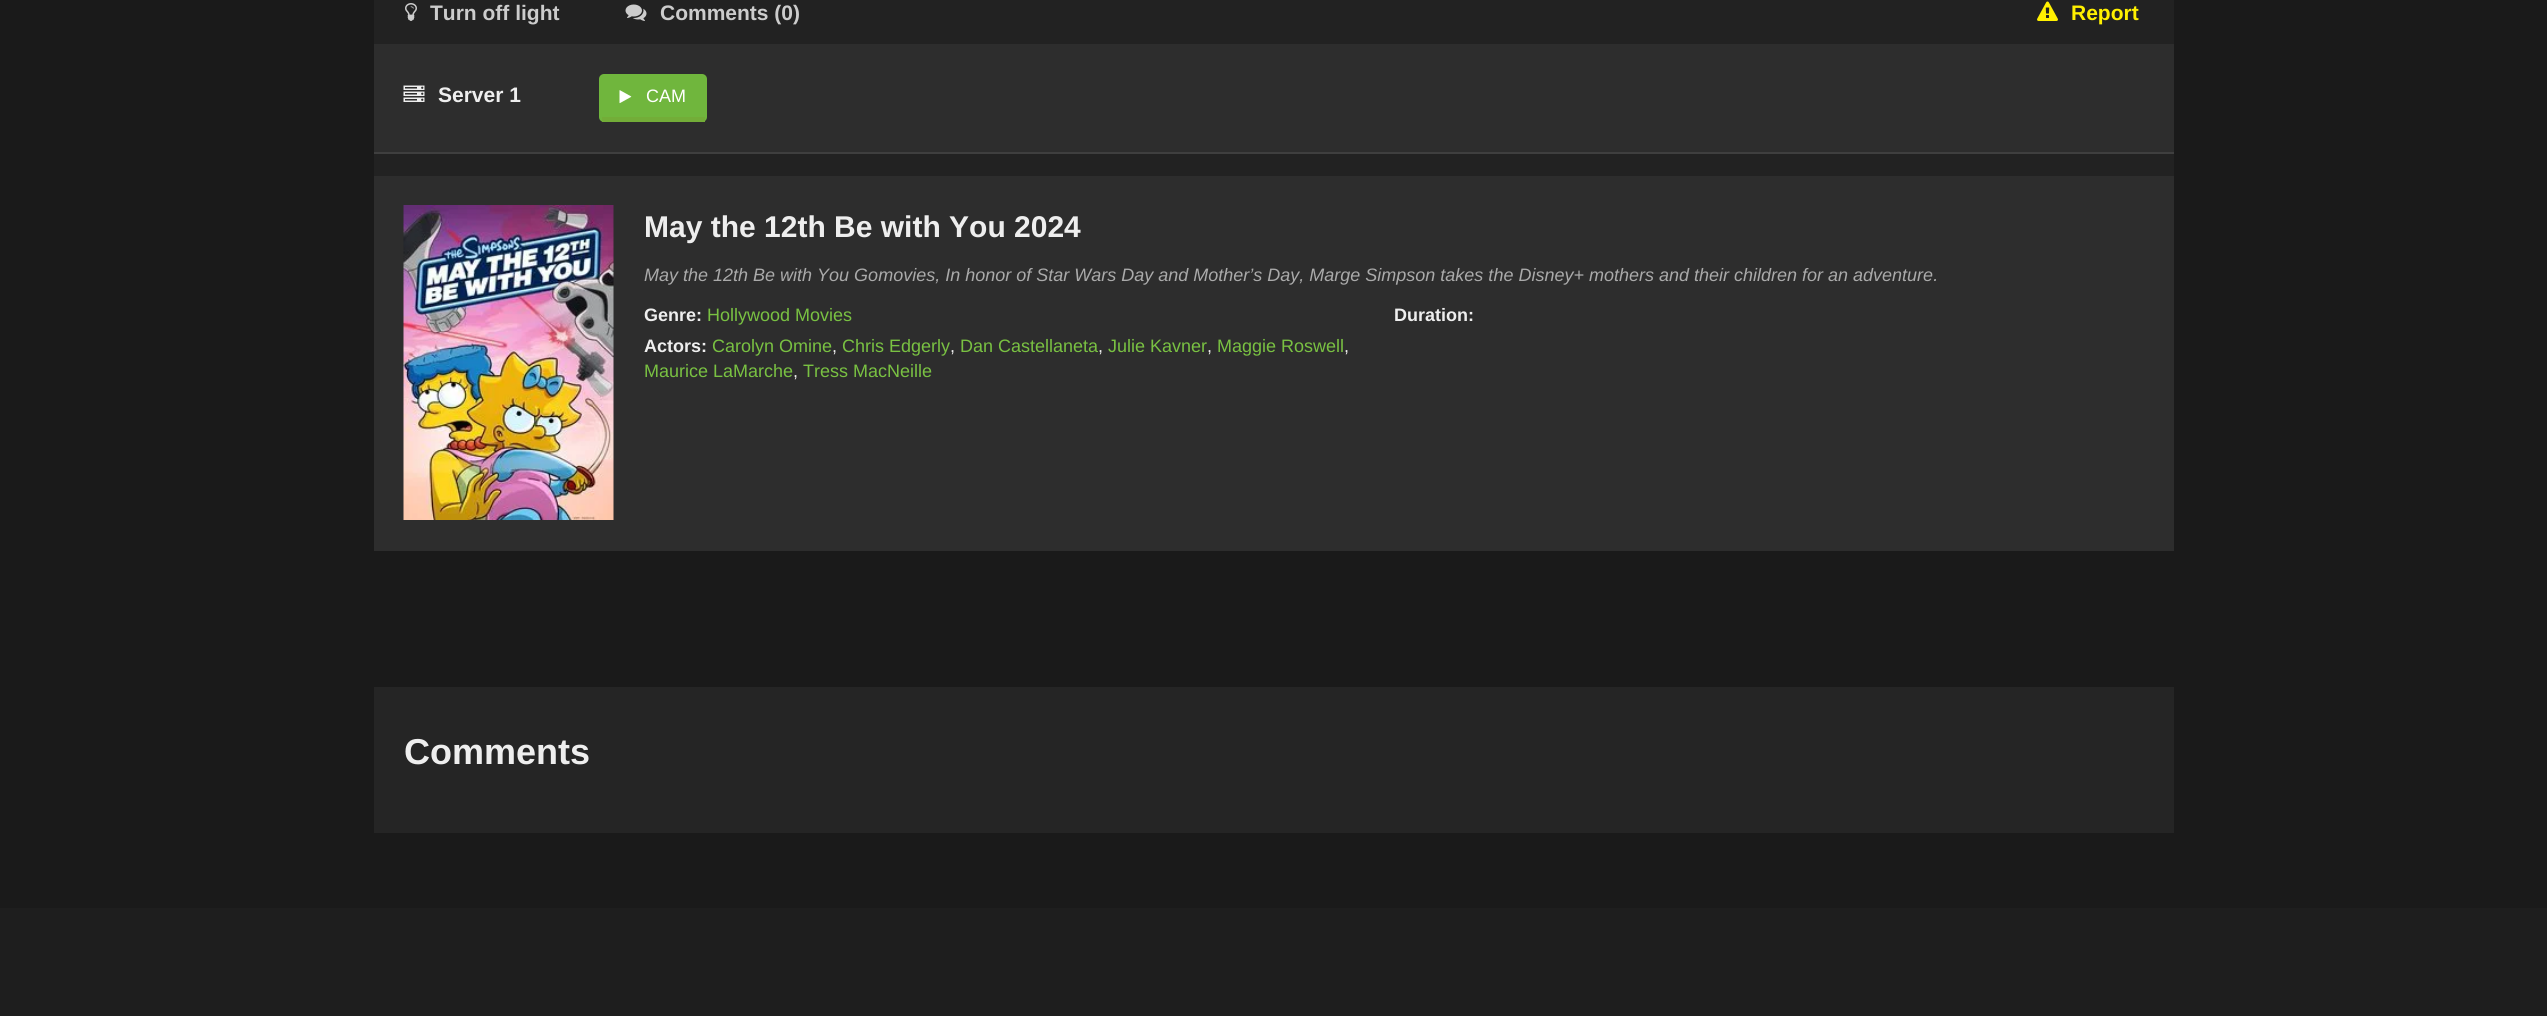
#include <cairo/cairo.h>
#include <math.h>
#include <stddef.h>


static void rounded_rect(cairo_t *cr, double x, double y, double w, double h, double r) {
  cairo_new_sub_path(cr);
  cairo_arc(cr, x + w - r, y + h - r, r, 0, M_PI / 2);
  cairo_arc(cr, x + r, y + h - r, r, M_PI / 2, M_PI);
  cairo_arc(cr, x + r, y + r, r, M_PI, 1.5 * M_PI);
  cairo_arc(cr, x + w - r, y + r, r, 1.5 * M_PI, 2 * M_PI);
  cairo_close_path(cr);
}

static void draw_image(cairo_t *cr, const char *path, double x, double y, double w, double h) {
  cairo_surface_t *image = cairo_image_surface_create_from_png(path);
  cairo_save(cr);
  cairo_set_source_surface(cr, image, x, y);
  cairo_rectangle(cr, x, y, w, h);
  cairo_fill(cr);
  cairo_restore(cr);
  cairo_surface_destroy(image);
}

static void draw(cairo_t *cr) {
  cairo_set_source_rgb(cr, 26 / 255.0, 26 / 255.0, 26 / 255.0);
  cairo_paint(cr);
  cairo_set_source_rgb(cr, 34 / 255.0, 34 / 255.0, 34 / 255.0);
  cairo_rectangle(cr, 374, 0, 1800, 176);
  cairo_fill(cr);
  draw_image(cr, "images/1.png", 405, 3, 12, 18);
  draw_image(cr, "images/2.png", 625, 4, 22, 17);
  draw_image(cr, "images/3.png", 2037, 1, 21, 20);
  cairo_set_source_rgb(cr, 45 / 255.0, 45 / 255.0, 45 / 255.0);
  cairo_rectangle(cr, 374, 44, 1800, 108);
  cairo_fill(cr);
  cairo_set_source_rgb(cr, 63 / 255.0, 63 / 255.0, 63 / 255.0);
  cairo_rectangle(cr, 374, 152, 1800, 2);
  cairo_fill(cr);
  draw_image(cr, "images/4.png", 403, 85, 22, 17);
  cairo_set_source_rgb(cr, 112 / 255.0, 182 / 255.0, 61 / 255.0);
  rounded_rect(cr, 599, 74, 108, 48, 5);
  cairo_fill(cr);
  cairo_set_source_rgb(cr, 115 / 255.0, 173 / 255.0, 56 / 255.0);
  cairo_rectangle(cr, 602, 117, 103, 5);
  cairo_fill(cr);
  draw_image(cr, "images/5.png", 619, 90, 13, 14);
  cairo_set_source_rgb(cr, 45 / 255.0, 45 / 255.0, 45 / 255.0);
  cairo_rectangle(cr, 374, 176, 1800, 375);
  cairo_fill(cr);
  draw_image(cr, "images/6.png", 403, 205, 211, 315);
  cairo_set_source_rgb(cr, 37 / 255.0, 37 / 255.0, 37 / 255.0);
  cairo_rectangle(cr, 374, 687, 1800, 146);
  cairo_fill(cr);
  cairo_set_source_rgb(cr, 30 / 255.0, 30 / 255.0, 30 / 255.0);
  cairo_rectangle(cr, 0, 908, 2547, 108);
  cairo_fill(cr);
  cairo_select_font_face(cr, "Liberation Sans", CAIRO_FONT_SLANT_NORMAL, CAIRO_FONT_WEIGHT_BOLD);
  cairo_set_font_size(cr, 21);
  cairo_set_source_rgb(cr, 204 / 255.0, 204 / 255.0, 204 / 255.0);
  cairo_move_to(cr, 430, 20);
  cairo_show_text(cr, "Turn off light");
  cairo_move_to(cr, 660, 20);
  cairo_show_text(cr, "Comments (0)");
  cairo_set_source_rgb(cr, 1, 240 / 255.0, 0);
  cairo_move_to(cr, 2071, 20);
  cairo_show_text(cr, "Report");
  cairo_set_source_rgb(cr, 238 / 255.0, 238 / 255.0, 238 / 255.0);
  cairo_move_to(cr, 438, 102);
  cairo_show_text(cr, "Server 1");
  cairo_select_font_face(cr, "Liberation Sans", CAIRO_FONT_SLANT_NORMAL, CAIRO_FONT_WEIGHT_NORMAL);
  cairo_set_font_size(cr, 18);
  cairo_set_source_rgb(cr, 1, 1, 1);
  cairo_move_to(cr, 646, 102);
  cairo_show_text(cr, "CAM");
  cairo_select_font_face(cr, "Liberation Sans", CAIRO_FONT_SLANT_NORMAL, CAIRO_FONT_WEIGHT_BOLD);
  cairo_set_font_size(cr, 30);
  cairo_set_source_rgb(cr, 238 / 255.0, 238 / 255.0, 238 / 255.0);
  cairo_move_to(cr, 644, 237);
  cairo_show_text(cr, "May the 12th Be with You 2024");
  cairo_select_font_face(cr, "Liberation Sans", CAIRO_FONT_SLANT_ITALIC, CAIRO_FONT_WEIGHT_NORMAL);
  cairo_set_font_size(cr, 18);
  cairo_set_source_rgb(cr, 170 / 255.0, 170 / 255.0, 170 / 255.0);
  cairo_move_to(cr, 644, 281);
  cairo_show_text(cr, "May the 12th Be with You Gomovies, In honor of Star Wars Day and Mother’s Day, Marge Simpson takes the Disney+ mothers and their children for an adventure.");
  cairo_select_font_face(cr, "Liberation Sans", CAIRO_FONT_SLANT_NORMAL, CAIRO_FONT_WEIGHT_BOLD);
  cairo_set_source_rgb(cr, 238 / 255.0, 238 / 255.0, 238 / 255.0);
  cairo_move_to(cr, 644, 321);
  cairo_show_text(cr, "Genre:");
  cairo_select_font_face(cr, "Liberation Sans", CAIRO_FONT_SLANT_NORMAL, CAIRO_FONT_WEIGHT_NORMAL);
  cairo_set_source_rgb(cr, 121 / 255.0, 193 / 255.0, 66 / 255.0);
  cairo_move_to(cr, 707, 321);
  cairo_show_text(cr, "Hollywood Movies");
  cairo_select_font_face(cr, "Liberation Sans", CAIRO_FONT_SLANT_NORMAL, CAIRO_FONT_WEIGHT_BOLD);
  cairo_set_source_rgb(cr, 238 / 255.0, 238 / 255.0, 238 / 255.0);
  cairo_move_to(cr, 644, 352);
  cairo_show_text(cr, "Actors:");
  cairo_select_font_face(cr, "Liberation Sans", CAIRO_FONT_SLANT_NORMAL, CAIRO_FONT_WEIGHT_NORMAL);
  cairo_set_source_rgb(cr, 121 / 255.0, 193 / 255.0, 66 / 255.0);
  cairo_move_to(cr, 712, 352);
  cairo_show_text(cr, "Carolyn Omine");
  cairo_set_source_rgb(cr, 238 / 255.0, 238 / 255.0, 238 / 255.0);
  cairo_move_to(cr, 832, 352);
  cairo_show_text(cr, ",");
  cairo_set_source_rgb(cr, 121 / 255.0, 193 / 255.0, 66 / 255.0);
  cairo_move_to(cr, 842, 352);
  cairo_show_text(cr, "Chris Edgerly");
  cairo_set_source_rgb(cr, 238 / 255.0, 238 / 255.0, 238 / 255.0);
  cairo_move_to(cr, 950, 352);
  cairo_show_text(cr, ",");
  cairo_set_source_rgb(cr, 121 / 255.0, 193 / 255.0, 66 / 255.0);
  cairo_move_to(cr, 960, 352);
  cairo_show_text(cr, "Dan Castellaneta");
  cairo_set_source_rgb(cr, 238 / 255.0, 238 / 255.0, 238 / 255.0);
  cairo_move_to(cr, 1098, 352);
  cairo_show_text(cr, ",");
  cairo_set_source_rgb(cr, 121 / 255.0, 193 / 255.0, 66 / 255.0);
  cairo_move_to(cr, 1108, 352);
  cairo_show_text(cr, "Julie Kavner");
  cairo_set_source_rgb(cr, 238 / 255.0, 238 / 255.0, 238 / 255.0);
  cairo_move_to(cr, 1207, 352);
  cairo_show_text(cr, ",");
  cairo_set_source_rgb(cr, 121 / 255.0, 193 / 255.0, 66 / 255.0);
  cairo_move_to(cr, 1217, 352);
  cairo_show_text(cr, "Maggie Roswell");
  cairo_set_source_rgb(cr, 238 / 255.0, 238 / 255.0, 238 / 255.0);
  cairo_move_to(cr, 1344, 352);
  cairo_show_text(cr, ",");
  cairo_set_source_rgb(cr, 121 / 255.0, 193 / 255.0, 66 / 255.0);
  cairo_move_to(cr, 644, 377);
  cairo_show_text(cr, "Maurice LaMarche");
  cairo_set_source_rgb(cr, 238 / 255.0, 238 / 255.0, 238 / 255.0);
  cairo_move_to(cr, 793, 377);
  cairo_show_text(cr, ",");
  cairo_set_source_rgb(cr, 121 / 255.0, 193 / 255.0, 66 / 255.0);
  cairo_move_to(cr, 803, 377);
  cairo_show_text(cr, "Tress MacNeille");
  cairo_select_font_face(cr, "Liberation Sans", CAIRO_FONT_SLANT_NORMAL, CAIRO_FONT_WEIGHT_BOLD);
  cairo_set_source_rgb(cr, 238 / 255.0, 238 / 255.0, 238 / 255.0);
  cairo_move_to(cr, 1394, 321);
  cairo_show_text(cr, "Duration:");
  cairo_set_font_size(cr, 36);
  cairo_move_to(cr, 404, 764);
  cairo_show_text(cr, "Comments");
}

int main(void) {
  cairo_surface_t *surface = cairo_image_surface_create(CAIRO_FORMAT_RGB24, 2547, 1016);
  cairo_t *cr = cairo_create(surface);
  cairo_font_options_t *options = cairo_font_options_create();
  cairo_font_options_set_hint_metrics(options, CAIRO_HINT_METRICS_OFF);
  cairo_font_options_set_hint_style(options, CAIRO_HINT_STYLE_NONE);
  cairo_set_font_options(cr, options);
  cairo_set_miter_limit(cr, 4);
  draw(cr);
  cairo_surface_write_to_png(surface, "out.png");
  cairo_font_options_destroy(options);
  cairo_destroy(cr);
  cairo_surface_destroy(surface);
  return 0;
}
